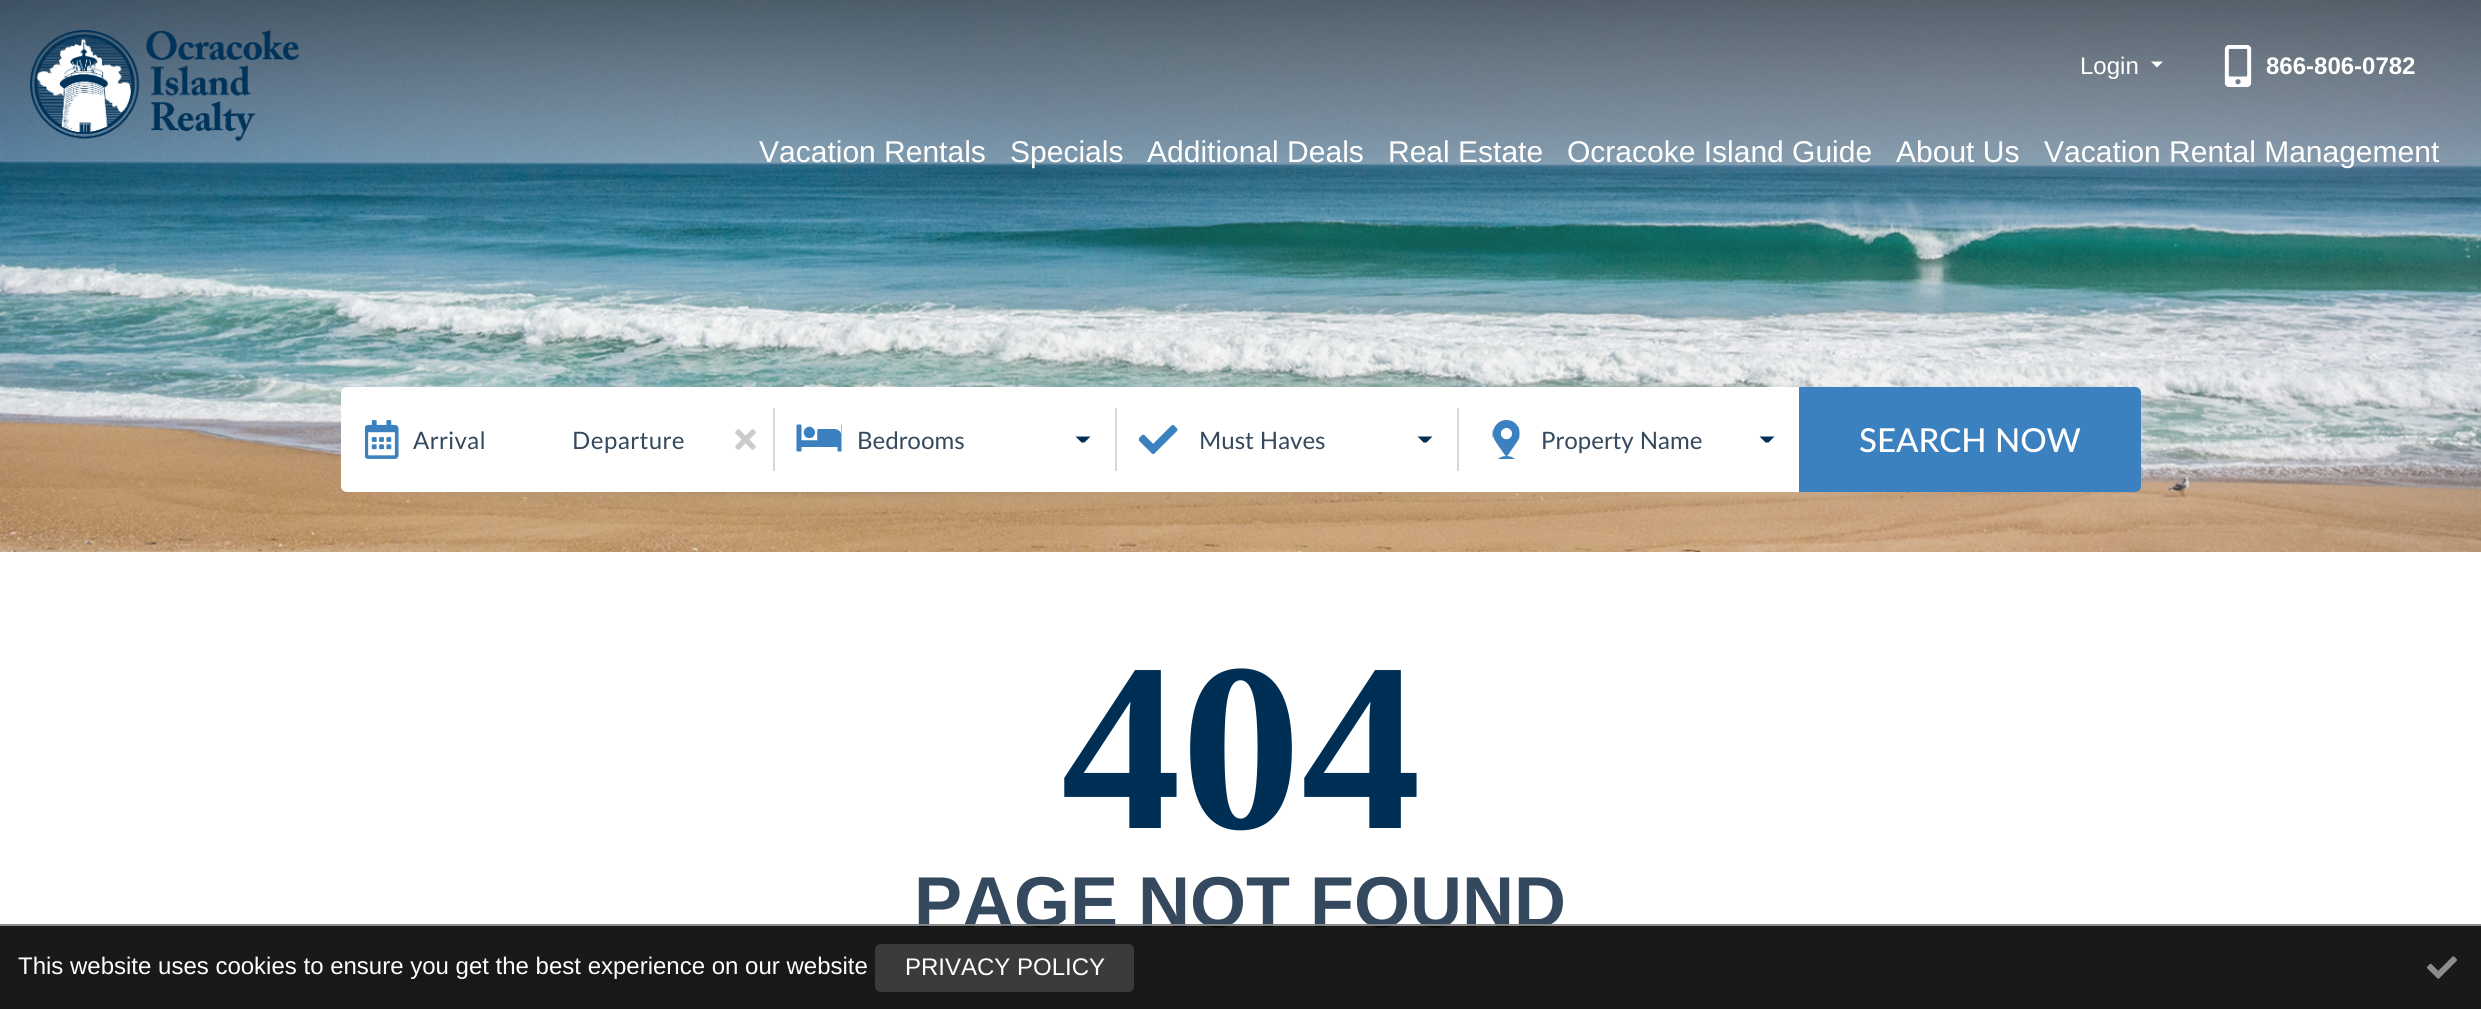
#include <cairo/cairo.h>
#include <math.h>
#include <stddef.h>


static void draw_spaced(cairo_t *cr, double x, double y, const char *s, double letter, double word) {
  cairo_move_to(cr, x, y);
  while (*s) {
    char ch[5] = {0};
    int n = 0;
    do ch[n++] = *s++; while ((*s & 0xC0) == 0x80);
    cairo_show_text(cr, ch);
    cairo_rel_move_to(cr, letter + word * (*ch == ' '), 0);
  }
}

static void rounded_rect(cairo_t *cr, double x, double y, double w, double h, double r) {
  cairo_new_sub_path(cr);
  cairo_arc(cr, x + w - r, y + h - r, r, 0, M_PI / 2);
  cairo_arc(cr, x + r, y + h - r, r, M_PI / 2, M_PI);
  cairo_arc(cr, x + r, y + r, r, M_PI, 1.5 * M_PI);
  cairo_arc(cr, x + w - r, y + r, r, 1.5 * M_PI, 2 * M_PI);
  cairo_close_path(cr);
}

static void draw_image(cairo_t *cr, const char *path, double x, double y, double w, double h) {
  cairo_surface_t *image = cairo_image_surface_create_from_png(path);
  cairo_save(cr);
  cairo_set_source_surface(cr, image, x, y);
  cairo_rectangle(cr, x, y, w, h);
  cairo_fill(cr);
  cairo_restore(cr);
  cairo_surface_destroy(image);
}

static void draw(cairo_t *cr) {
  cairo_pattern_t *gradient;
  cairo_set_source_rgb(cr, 1, 1, 1);
  cairo_paint(cr);
  draw_image(cr, "images/3.png", 0, 0, 2481, 552);
  gradient = cairo_pattern_create_linear(1241, 0, 1241, 240);
  cairo_pattern_add_color_stop_rgba(gradient, 0, 0, 0, 0, 0.5);
  cairo_pattern_add_color_stop_rgba(gradient, 1, 0, 0, 0, 0);
  cairo_set_source(cr, gradient);
  cairo_pattern_destroy(gradient);
  cairo_rectangle(cr, 0, 0, 2481, 230);
  cairo_fill(cr);
  draw_image(cr, "images/1.png", 30, 30, 270, 112);
  cairo_set_source_rgb(cr, 1, 1, 1);
  cairo_new_path(cr);
  cairo_move_to(cr, 2151, 61.5);
  cairo_line_to(cr, 2163, 61.5);
  cairo_line_to(cr, 2157, 67.5);
  cairo_close_path(cr);
  cairo_fill(cr);
  draw_image(cr, "images/2.png", 2224, 45, 28, 42);
  cairo_new_path(cr);
  cairo_move_to(cr, 347, 387);
  cairo_line_to(cr, 773, 387);
  cairo_line_to(cr, 773, 492);
  cairo_line_to(cr, 347, 492);
  cairo_curve_to(cr, 343.5, 492, 341, 489.5, 341, 486);
  cairo_line_to(cr, 341, 393);
  cairo_curve_to(cr, 341, 389.5, 343.5, 387, 347, 387);
  cairo_close_path(cr);
  cairo_fill(cr);
  draw_image(cr, "images/4.png", 365, 420, 34, 39);
  draw_image(cr, "images/5.png", 735, 429, 21, 21);
  cairo_rectangle(cr, 773, 387, 1026, 105);
  cairo_fill(cr);
  cairo_set_source_rgb(cr, 215 / 255.0, 215 / 255.0, 215 / 255.0);
  cairo_rectangle(cr, 773, 408, 2, 63);
  cairo_fill(cr);
  draw_image(cr, "images/6.png", 796, 424, 46, 28);
  cairo_set_source_rgb(cr, 0, 47 / 255.0, 85 / 255.0);
  cairo_new_path(cr);
  cairo_move_to(cr, 1075.5, 436.5);
  cairo_line_to(cr, 1090.5, 436.5);
  cairo_line_to(cr, 1084.5, 442.5);
  cairo_line_to(cr, 1081.5, 442.5);
  cairo_close_path(cr);
  cairo_fill(cr);
  cairo_set_source_rgb(cr, 215 / 255.0, 215 / 255.0, 215 / 255.0);
  cairo_rectangle(cr, 1115, 408, 2, 63);
  cairo_fill(cr);
  draw_image(cr, "images/7.png", 1139, 425, 39, 29);
  cairo_set_source_rgb(cr, 0, 47 / 255.0, 85 / 255.0);
  cairo_new_path(cr);
  cairo_move_to(cr, 1417.5, 436.5);
  cairo_line_to(cr, 1432.5, 436.5);
  cairo_line_to(cr, 1426.5, 442.5);
  cairo_line_to(cr, 1423.5, 442.5);
  cairo_close_path(cr);
  cairo_fill(cr);
  cairo_set_source_rgb(cr, 215 / 255.0, 215 / 255.0, 215 / 255.0);
  cairo_rectangle(cr, 1457, 408, 2, 63);
  cairo_fill(cr);
  draw_image(cr, "images/8.png", 1492, 420, 28, 39);
  cairo_set_source_rgb(cr, 0, 47 / 255.0, 85 / 255.0);
  cairo_new_path(cr);
  cairo_move_to(cr, 1759.5, 436.5);
  cairo_line_to(cr, 1774.5, 436.5);
  cairo_line_to(cr, 1768.5, 442.5);
  cairo_line_to(cr, 1765.5, 442.5);
  cairo_close_path(cr);
  cairo_fill(cr);
  cairo_set_source_rgb(cr, 59 / 255.0, 129 / 255.0, 191 / 255.0);
  cairo_new_path(cr);
  cairo_move_to(cr, 1799, 387);
  cairo_line_to(cr, 2135, 387);
  cairo_curve_to(cr, 2138.5, 387, 2141, 389.5, 2141, 393);
  cairo_line_to(cr, 2141, 486);
  cairo_curve_to(cr, 2141, 489.5, 2138.5, 492, 2135, 492);
  cairo_line_to(cr, 1799, 492);
  cairo_close_path(cr);
  cairo_fill(cr);
  cairo_set_source_rgb(cr, 230 / 255.0, 234 / 255.0, 238 / 255.0);
  rounded_rect(cr, 408, 975, 1665, 8, 4);
  cairo_fill(cr);
  cairo_select_font_face(cr, "Liberation Sans", CAIRO_FONT_SLANT_NORMAL, CAIRO_FONT_WEIGHT_NORMAL);
  cairo_set_font_size(cr, 24);
  cairo_set_source_rgb(cr, 1, 1, 1);
  cairo_move_to(cr, 2080, 74);
  cairo_show_text(cr, "Login");
  cairo_select_font_face(cr, "Liberation Sans", CAIRO_FONT_SLANT_NORMAL, CAIRO_FONT_WEIGHT_BOLD);
  cairo_move_to(cr, 2266, 74);
  cairo_show_text(cr, "866-806-0782");
  cairo_select_font_face(cr, "Liberation Sans", CAIRO_FONT_SLANT_NORMAL, CAIRO_FONT_WEIGHT_NORMAL);
  cairo_set_font_size(cr, 30);
  cairo_move_to(cr, 759, 162);
  cairo_show_text(cr, "Vacation Rentals");
  cairo_move_to(cr, 1010, 162);
  cairo_show_text(cr, "Specials");
  cairo_move_to(cr, 1147, 162);
  cairo_show_text(cr, "Additional Deals");
  cairo_move_to(cr, 1388, 162);
  cairo_show_text(cr, "Real Estate");
  cairo_move_to(cr, 1567, 162);
  cairo_show_text(cr, "Ocracoke Island Guide");
  cairo_move_to(cr, 1896, 162);
  cairo_show_text(cr, "About Us");
  cairo_move_to(cr, 2044, 162);
  cairo_show_text(cr, "Vacation Rental Management");
  cairo_select_font_face(cr, "Lato", CAIRO_FONT_SLANT_NORMAL, CAIRO_FONT_WEIGHT_NORMAL);
  cairo_set_font_size(cr, 24);
  cairo_set_source_rgb(cr, 52 / 255.0, 73 / 255.0, 94 / 255.0);
  draw_spaced(cr, 413, 449, "Arrival", 0.5, 0);
  draw_spaced(cr, 572, 449, "Departure", 0.5, 0);
  cairo_move_to(cr, 857, 449);
  cairo_show_text(cr, "Bedrooms");
  cairo_move_to(cr, 1199, 449);
  cairo_show_text(cr, "Must Haves");
  cairo_move_to(cr, 1541, 449);
  cairo_show_text(cr, "Property Name");
  cairo_select_font_face(cr, "Lato Medium", CAIRO_FONT_SLANT_NORMAL, CAIRO_FONT_WEIGHT_NORMAL);
  cairo_set_font_size(cr, 33);
  cairo_set_source_rgb(cr, 1, 1, 1);
  cairo_move_to(cr, 1859, 452);
  cairo_show_text(cr, "SEARCH NOW");
  cairo_select_font_face(cr, "Liberation Serif", CAIRO_FONT_SLANT_NORMAL, CAIRO_FONT_WEIGHT_BOLD);
  cairo_set_font_size(cr, 240);
  cairo_set_source_rgb(cr, 0, 47 / 255.0, 85 / 255.0);
  cairo_move_to(cr, 1061, 828);
  cairo_show_text(cr, "404");
  cairo_select_font_face(cr, "Liberation Sans", CAIRO_FONT_SLANT_NORMAL, CAIRO_FONT_WEIGHT_BOLD);
  cairo_set_font_size(cr, 72);
  cairo_set_source_rgb(cr, 52 / 255.0, 73 / 255.0, 94 / 255.0);
  cairo_move_to(cr, 914, 927);
  cairo_show_text(cr, "PAGE NOT FOUND");
  cairo_set_source_rgba(cr, 0, 0, 0, 0.9);
  cairo_rectangle(cr, 0, 924, 2481, 85);
  cairo_fill(cr);
  cairo_set_source_rgba(cr, 1, 1, 1, 0.5);
  cairo_rectangle(cr, 0, 924, 2481, 2);
  cairo_fill(cr);
  cairo_select_font_face(cr, "Liberation Sans", CAIRO_FONT_SLANT_NORMAL, CAIRO_FONT_WEIGHT_NORMAL);
  cairo_set_font_size(cr, 24);
  cairo_set_source_rgb(cr, 1, 1, 1);
  cairo_move_to(cr, 18, 974);
  cairo_show_text(cr, "This website uses cookies to ensure you get the best experience on our website");
  cairo_set_source_rgba(cr, 1, 1, 1, 0.15);
  rounded_rect(cr, 875, 944, 259, 48, 6);
  cairo_fill(cr);
  cairo_set_source_rgb(cr, 1, 1, 1);
  cairo_move_to(cr, 905, 975);
  cairo_show_text(cr, "PRIVACY POLICY");
  draw_image(cr, "images/9.png", 2427, 956, 30, 23);
}

int main(void) {
  cairo_surface_t *surface = cairo_image_surface_create(CAIRO_FORMAT_RGB24, 2481, 1009);
  cairo_t *cr = cairo_create(surface);
  cairo_font_options_t *options = cairo_font_options_create();
  cairo_font_options_set_hint_metrics(options, CAIRO_HINT_METRICS_OFF);
  cairo_font_options_set_hint_style(options, CAIRO_HINT_STYLE_NONE);
  cairo_set_font_options(cr, options);
  cairo_set_miter_limit(cr, 4);
  draw(cr);
  cairo_surface_write_to_png(surface, "out.png");
  cairo_font_options_destroy(options);
  cairo_destroy(cr);
  cairo_surface_destroy(surface);
  return 0;
}
